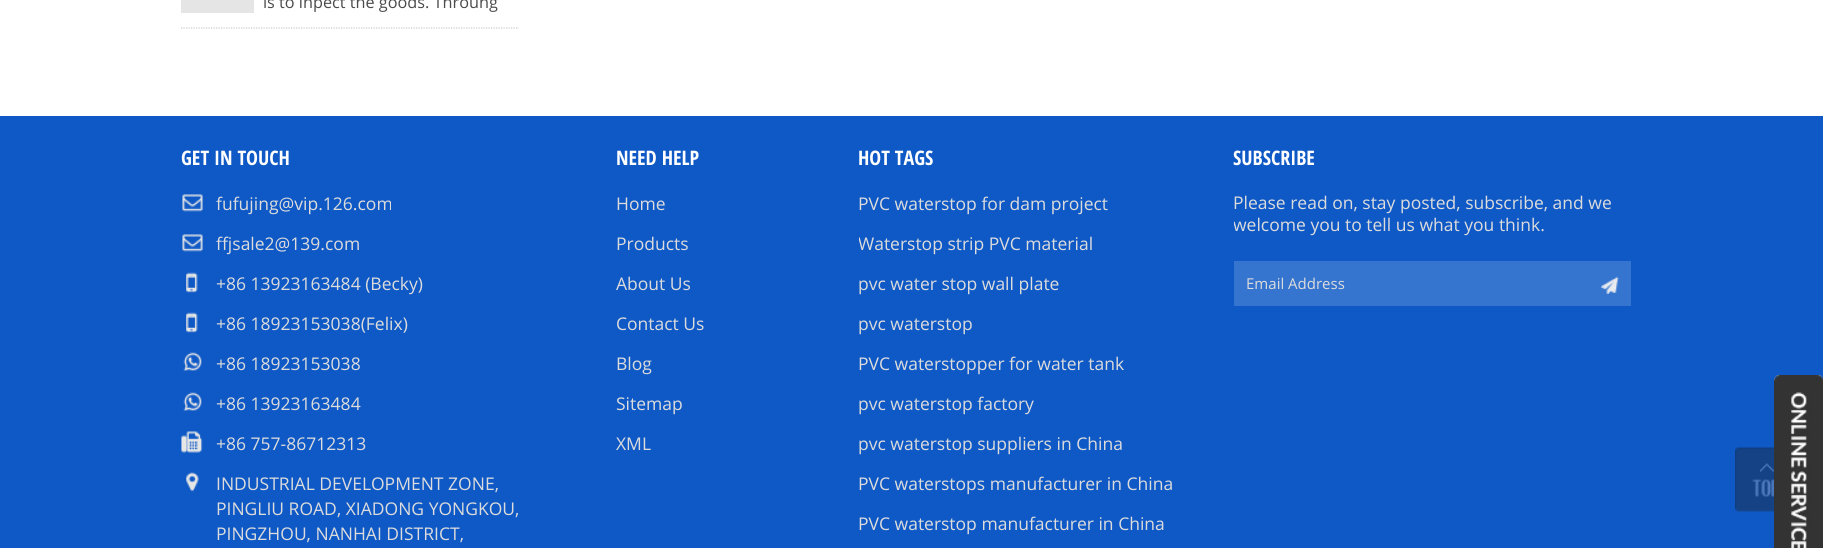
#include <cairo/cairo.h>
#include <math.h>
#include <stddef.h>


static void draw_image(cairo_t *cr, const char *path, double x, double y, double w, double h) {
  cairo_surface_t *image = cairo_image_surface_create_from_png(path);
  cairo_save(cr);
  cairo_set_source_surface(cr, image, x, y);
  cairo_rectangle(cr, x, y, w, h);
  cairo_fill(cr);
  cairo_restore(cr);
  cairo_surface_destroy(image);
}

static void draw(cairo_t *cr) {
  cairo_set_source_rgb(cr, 1, 1, 1);
  cairo_paint(cr);
  cairo_new_path(cr);
  cairo_move_to(cr, 181, 28);
  cairo_line_to(cr, 519, 28);
  cairo_set_source_rgb(cr, 203 / 255.0, 203 / 255.0, 203 / 255.0);
  cairo_set_line_width(cr, 1.2);
  cairo_set_dash(cr, (double[]){1.25, 1.25}, 2, 0);
  cairo_stroke(cr);
  cairo_set_source_rgb(cr, 229 / 255.0, 229 / 255.0, 229 / 255.0);
  cairo_rectangle(cr, 181, 0, 73, 13);
  cairo_fill(cr);
  cairo_set_source_rgb(cr, 15 / 255.0, 89 / 255.0, 198 / 255.0);
  cairo_rectangle(cr, 0, 116, 1823, 432);
  cairo_fill(cr);
  draw_image(cr, "images/1.png", 182, 194, 21, 18);
  draw_image(cr, "images/1.png", 182, 234, 21, 18);
  draw_image(cr, "images/2.png", 186, 272, 12, 21);
  draw_image(cr, "images/2.png", 186, 312, 12, 21);
  draw_image(cr, "images/3.png", 183, 352, 19, 20);
  draw_image(cr, "images/4.png", 183, 392, 19, 20);
  draw_image(cr, "images/5.png", 181, 431, 22, 22);
  draw_image(cr, "images/6.png", 186, 472, 13, 20);
  cairo_set_source_rgb(cr, 53 / 255.0, 116 / 255.0, 207 / 255.0);
  cairo_rectangle(cr, 1234, 261, 397, 45);
  cairo_fill(cr);
  draw_image(cr, "images/7.png", 1601, 276, 18, 18);
  draw_image(cr, "images/8.png", 1735, 447, 39, 65);
  draw_image(cr, "images/9.png", 1774, 375, 49, 173);
  cairo_select_font_face(cr, "Open Sans", CAIRO_FONT_SLANT_NORMAL, CAIRO_FONT_WEIGHT_NORMAL);
  cairo_set_font_size(cr, 16.25);
  cairo_set_source_rgb(cr, 75 / 255.0, 75 / 255.0, 75 / 255.0);
  cairo_move_to(cr, 263, 8);
  cairo_show_text(cr, "is to inpect the goods. Throung");
  cairo_select_font_face(cr, "Open Sans Condensed", CAIRO_FONT_SLANT_NORMAL, CAIRO_FONT_WEIGHT_BOLD);
  cairo_set_font_size(cr, 20);
  cairo_set_source_rgb(cr, 1, 1, 1);
  cairo_move_to(cr, 181, 165);
  cairo_show_text(cr, "GET IN TOUCH");
  cairo_select_font_face(cr, "Open Sans", CAIRO_FONT_SLANT_NORMAL, CAIRO_FONT_WEIGHT_NORMAL);
  cairo_set_font_size(cr, 17.5);
  cairo_set_source_rgb(cr, 220 / 255.0, 220 / 255.0, 220 / 255.0);
  cairo_move_to(cr, 216, 210);
  cairo_show_text(cr, "fufujing@vip.126.com");
  cairo_move_to(cr, 216, 250);
  cairo_show_text(cr, "ffjsale2@139.com");
  cairo_move_to(cr, 216, 290);
  cairo_show_text(cr, "+86 13923163484 (Becky)");
  cairo_move_to(cr, 216, 330);
  cairo_show_text(cr, "+86 18923153038(Felix)");
  cairo_move_to(cr, 216, 370);
  cairo_show_text(cr, "+86 18923153038");
  cairo_move_to(cr, 216, 410);
  cairo_show_text(cr, "+86 13923163484");
  cairo_move_to(cr, 216, 450);
  cairo_show_text(cr, "+86 757-86712313");
  cairo_move_to(cr, 216, 490);
  cairo_show_text(cr, "INDUSTRIAL DEVELOPMENT ZONE,");
  cairo_move_to(cr, 216, 515);
  cairo_show_text(cr, "PINGLIU ROAD, XIADONG YONGKOU,");
  cairo_move_to(cr, 216, 540);
  cairo_show_text(cr, "PINGZHOU, NANHAI DISTRICT,");
  cairo_select_font_face(cr, "Open Sans Condensed", CAIRO_FONT_SLANT_NORMAL, CAIRO_FONT_WEIGHT_BOLD);
  cairo_set_font_size(cr, 20);
  cairo_set_source_rgb(cr, 1, 1, 1);
  cairo_move_to(cr, 616, 165);
  cairo_show_text(cr, "NEED HELP");
  cairo_select_font_face(cr, "Open Sans", CAIRO_FONT_SLANT_NORMAL, CAIRO_FONT_WEIGHT_NORMAL);
  cairo_set_font_size(cr, 17.5);
  cairo_set_source_rgb(cr, 220 / 255.0, 220 / 255.0, 220 / 255.0);
  cairo_move_to(cr, 616, 210);
  cairo_show_text(cr, "Home");
  cairo_move_to(cr, 616, 250);
  cairo_show_text(cr, "Products");
  cairo_move_to(cr, 616, 290);
  cairo_show_text(cr, "About Us");
  cairo_move_to(cr, 616, 330);
  cairo_show_text(cr, "Contact Us");
  cairo_move_to(cr, 616, 370);
  cairo_show_text(cr, "Blog");
  cairo_move_to(cr, 616, 410);
  cairo_show_text(cr, "Sitemap");
  cairo_move_to(cr, 616, 450);
  cairo_show_text(cr, "XML");
  cairo_select_font_face(cr, "Open Sans Condensed", CAIRO_FONT_SLANT_NORMAL, CAIRO_FONT_WEIGHT_BOLD);
  cairo_set_font_size(cr, 20);
  cairo_set_source_rgb(cr, 1, 1, 1);
  cairo_move_to(cr, 858, 165);
  cairo_show_text(cr, "HOT TAGS");
  cairo_select_font_face(cr, "Open Sans", CAIRO_FONT_SLANT_NORMAL, CAIRO_FONT_WEIGHT_NORMAL);
  cairo_set_font_size(cr, 17.5);
  cairo_set_source_rgb(cr, 220 / 255.0, 220 / 255.0, 220 / 255.0);
  cairo_move_to(cr, 858, 210);
  cairo_show_text(cr, "PVC waterstop for dam project");
  cairo_save(cr);
  cairo_rectangle(cr, 859, 191, 337, 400);
  cairo_clip(cr);
  cairo_move_to(cr, 858, 250);
  cairo_show_text(cr, "Waterstop strip PVC material");
  cairo_restore(cr);
  cairo_move_to(cr, 858, 290);
  cairo_show_text(cr, "pvc water stop wall plate");
  cairo_move_to(cr, 858, 330);
  cairo_show_text(cr, "pvc waterstop");
  cairo_move_to(cr, 858, 370);
  cairo_show_text(cr, "PVC waterstopper for water tank");
  cairo_move_to(cr, 858, 410);
  cairo_show_text(cr, "pvc waterstop factory");
  cairo_move_to(cr, 858, 450);
  cairo_show_text(cr, "pvc waterstop suppliers in China");
  cairo_move_to(cr, 858, 490);
  cairo_show_text(cr, "PVC waterstops manufacturer in China");
  cairo_move_to(cr, 858, 530);
  cairo_show_text(cr, "PVC waterstop manufacturer in China");
  cairo_select_font_face(cr, "Open Sans Condensed", CAIRO_FONT_SLANT_NORMAL, CAIRO_FONT_WEIGHT_BOLD);
  cairo_set_font_size(cr, 20);
  cairo_set_source_rgb(cr, 1, 1, 1);
  cairo_move_to(cr, 1233, 165);
  cairo_show_text(cr, "SUBSCRIBE");
  cairo_select_font_face(cr, "Open Sans", CAIRO_FONT_SLANT_NORMAL, CAIRO_FONT_WEIGHT_NORMAL);
  cairo_set_font_size(cr, 17.5);
  cairo_set_source_rgb(cr, 220 / 255.0, 220 / 255.0, 220 / 255.0);
  cairo_move_to(cr, 1233, 209);
  cairo_show_text(cr, "Please read on, stay posted, subscribe, and we");
  cairo_save(cr);
  cairo_rectangle(cr, 1234, 191, 397, 140);
  cairo_clip(cr);
  cairo_move_to(cr, 1233, 231);
  cairo_show_text(cr, "welcome you to tell us what you think.");
  cairo_restore(cr);
  cairo_set_font_size(cr, 15);
  cairo_move_to(cr, 1246, 289);
  cairo_show_text(cr, "Email Address");
}

int main(void) {
  cairo_surface_t *surface = cairo_image_surface_create(CAIRO_FORMAT_RGB24, 1823, 548);
  cairo_t *cr = cairo_create(surface);
  cairo_font_options_t *options = cairo_font_options_create();
  cairo_font_options_set_hint_metrics(options, CAIRO_HINT_METRICS_OFF);
  cairo_font_options_set_hint_style(options, CAIRO_HINT_STYLE_NONE);
  cairo_set_font_options(cr, options);
  cairo_set_miter_limit(cr, 4);
  draw(cr);
  cairo_surface_write_to_png(surface, "out.png");
  cairo_font_options_destroy(options);
  cairo_destroy(cr);
  cairo_surface_destroy(surface);
  return 0;
}
